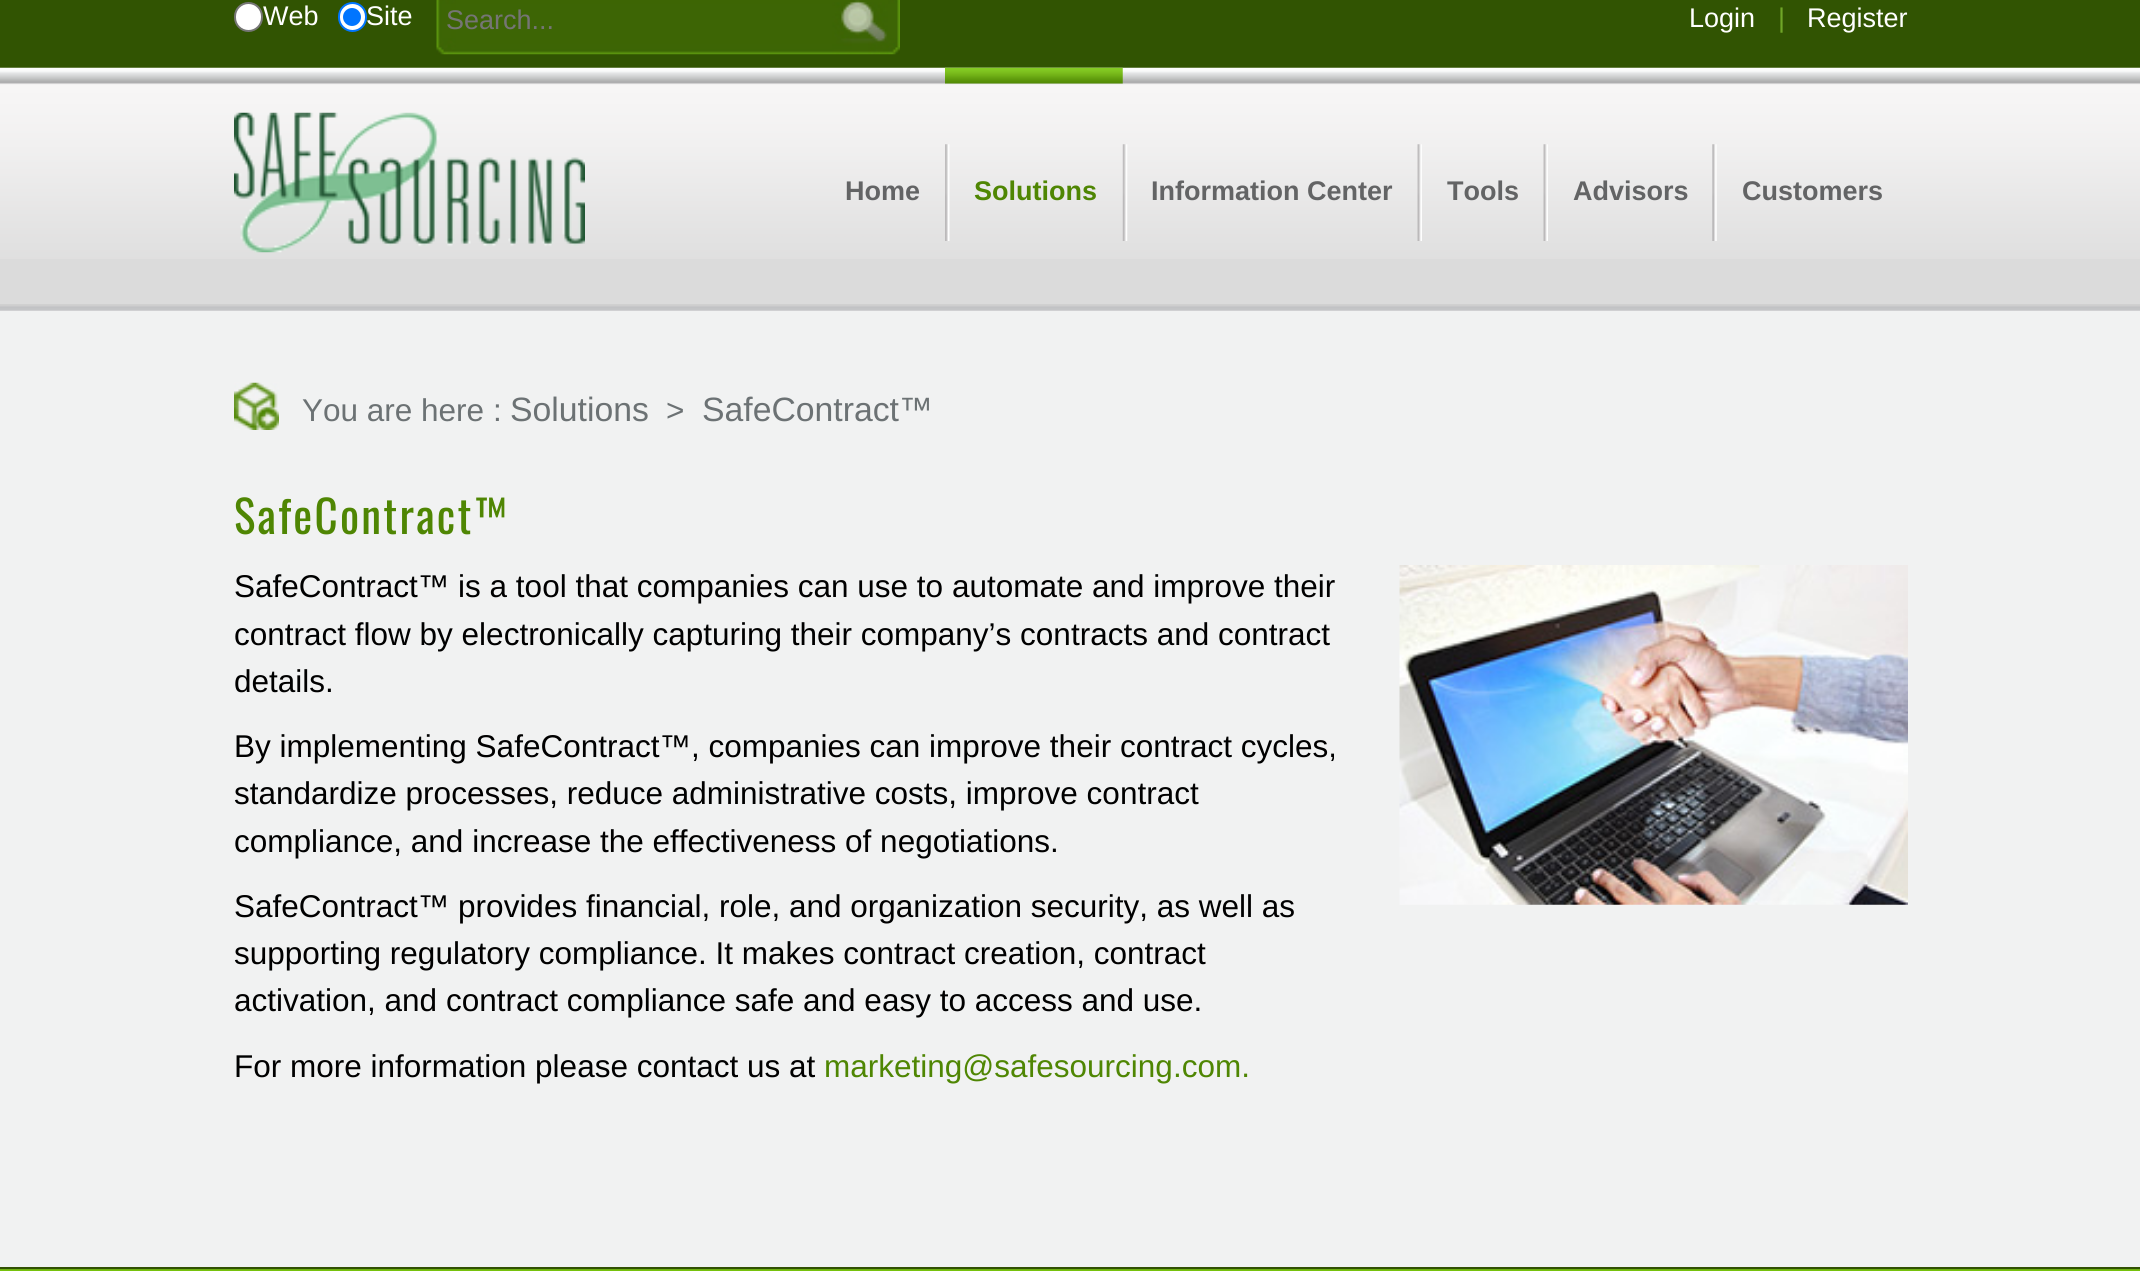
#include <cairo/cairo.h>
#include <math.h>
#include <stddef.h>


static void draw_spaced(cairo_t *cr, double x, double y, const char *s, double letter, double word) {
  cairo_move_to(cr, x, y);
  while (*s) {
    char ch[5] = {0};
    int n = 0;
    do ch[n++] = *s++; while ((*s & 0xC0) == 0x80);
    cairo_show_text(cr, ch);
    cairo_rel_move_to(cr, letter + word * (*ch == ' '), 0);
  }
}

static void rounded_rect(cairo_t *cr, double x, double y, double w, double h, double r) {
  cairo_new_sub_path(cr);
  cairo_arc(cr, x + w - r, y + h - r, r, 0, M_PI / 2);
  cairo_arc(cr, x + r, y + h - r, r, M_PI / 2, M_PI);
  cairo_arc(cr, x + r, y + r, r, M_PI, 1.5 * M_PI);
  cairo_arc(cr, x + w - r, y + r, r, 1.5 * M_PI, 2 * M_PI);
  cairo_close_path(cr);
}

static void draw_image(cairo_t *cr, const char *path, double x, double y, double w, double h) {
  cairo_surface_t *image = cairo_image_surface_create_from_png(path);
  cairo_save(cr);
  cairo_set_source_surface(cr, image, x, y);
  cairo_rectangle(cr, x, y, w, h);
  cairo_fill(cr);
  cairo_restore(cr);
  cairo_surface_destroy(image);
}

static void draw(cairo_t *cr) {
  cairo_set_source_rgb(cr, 49 / 255.0, 84 / 255.0, 2 / 255.0);
  cairo_paint(cr);
  draw_image(cr, "images/1.png", 436, 0, 464, 55);
  cairo_set_source_rgb(cr, 1, 1, 1);
  rounded_rect(cr, 235, 3, 27, 28, 13.5);
  cairo_fill_preserve(cr);
  cairo_set_source_rgb(cr, 118 / 255.0, 118 / 255.0, 118 / 255.0);
  cairo_stroke(cr);
  cairo_set_source_rgb(cr, 1, 1, 1);
  rounded_rect(cr, 339, 3, 27, 28, 13.5);
  cairo_fill_preserve(cr);
  cairo_set_source_rgb(cr, 0, 117 / 255.0, 1);
  cairo_stroke(cr);
  cairo_arc(cr, 352, 17, 9, 0, 2 * M_PI);
  cairo_fill(cr);
  cairo_set_source_rgb(cr, 219 / 255.0, 219 / 255.0, 219 / 255.0);
  cairo_rectangle(cr, 0, 259, 2140, 45);
  cairo_fill(cr);
  draw_image(cr, "images/2.png", 0, 67, 2140, 192);
  draw_image(cr, "images/3.png", 234, 112, 351, 141);
  draw_image(cr, "images/4.png", 945, 67, 178, 17);
  draw_image(cr, "images/5.png", 945, 144, 5, 97);
  draw_image(cr, "images/6.png", 1122, 144, 6, 97);
  draw_image(cr, "images/7.png", 1417, 144, 5, 97);
  draw_image(cr, "images/7.png", 1543, 144, 5, 97);
  draw_image(cr, "images/8.png", 1712, 144, 5, 97);
  cairo_set_source_rgb(cr, 241 / 255.0, 242 / 255.0, 242 / 255.0);
  cairo_rectangle(cr, 0, 310, 2140, 957);
  cairo_fill(cr);
  draw_image(cr, "images/9.png", 0, 304, 2140, 7);
  draw_image(cr, "images/10.png", 234, 382, 45, 48);
  draw_image(cr, "images/11.png", 1399, 565, 509, 340);
  cairo_set_source_rgb(cr, 111 / 255.0, 176 / 255.0, 20 / 255.0);
  cairo_rectangle(cr, 0, 1269, 2140, 1);
  cairo_fill(cr);
  cairo_set_source_rgb(cr, 49 / 255.0, 81 / 255.0, 4 / 255.0);
  cairo_rectangle(cr, 0, 1267, 2140, 2);
  cairo_fill(cr);
  cairo_set_source_rgb(cr, 118 / 255.0, 194 / 255.0, 12 / 255.0);
  cairo_rectangle(cr, 0, 1270, 2140, 1);
  cairo_fill(cr);
  cairo_select_font_face(cr, "Liberation Sans", CAIRO_FONT_SLANT_NORMAL, CAIRO_FONT_WEIGHT_NORMAL);
  cairo_set_font_size(cr, 27);
  cairo_set_source_rgb(cr, 1, 1, 1);
  cairo_move_to(cr, 263, 25);
  cairo_show_text(cr, "Web");
  cairo_move_to(cr, 366, 25);
  cairo_show_text(cr, "Site");
  cairo_set_source_rgb(cr, 117 / 255.0, 117 / 255.0, 117 / 255.0);
  cairo_move_to(cr, 446, 29);
  cairo_show_text(cr, "Search...");
  cairo_set_source_rgb(cr, 1, 1, 1);
  cairo_move_to(cr, 1689, 27);
  cairo_show_text(cr, "Login");
  cairo_set_source_rgb(cr, 112 / 255.0, 166 / 255.0, 40 / 255.0);
  cairo_move_to(cr, 1778, 27);
  cairo_show_text(cr, "|");
  cairo_set_source_rgb(cr, 1, 1, 1);
  cairo_move_to(cr, 1807, 27);
  cairo_show_text(cr, "Register");
  cairo_select_font_face(cr, "Liberation Sans", CAIRO_FONT_SLANT_NORMAL, CAIRO_FONT_WEIGHT_BOLD);
  cairo_set_source_rgb(cr, 99 / 255.0, 100 / 255.0, 101 / 255.0);
  cairo_move_to(cr, 845, 200);
  cairo_show_text(cr, "Home");
  cairo_set_source_rgb(cr, 79 / 255.0, 134 / 255.0, 3 / 255.0);
  cairo_move_to(cr, 974, 200);
  cairo_show_text(cr, "Solutions");
  cairo_set_source_rgb(cr, 99 / 255.0, 100 / 255.0, 101 / 255.0);
  cairo_move_to(cr, 1151, 200);
  cairo_show_text(cr, "Information Center");
  cairo_move_to(cr, 1447, 200);
  cairo_show_text(cr, "Tools");
  cairo_move_to(cr, 1573, 200);
  cairo_show_text(cr, "Advisors");
  cairo_move_to(cr, 1742, 200);
  cairo_show_text(cr, "Customers");
  cairo_select_font_face(cr, "Liberation Sans", CAIRO_FONT_SLANT_NORMAL, CAIRO_FONT_WEIGHT_NORMAL);
  cairo_set_font_size(cr, 31.5);
  cairo_set_source_rgb(cr, 108 / 255.0, 114 / 255.0, 116 / 255.0);
  cairo_move_to(cr, 302, 421);
  cairo_show_text(cr, "You are here :");
  cairo_set_font_size(cr, 33.75);
  cairo_move_to(cr, 510, 421);
  cairo_show_text(cr, "Solutions");
  cairo_set_font_size(cr, 31.5);
  cairo_move_to(cr, 666, 421);
  cairo_show_text(cr, ">");
  cairo_set_font_size(cr, 33.75);
  cairo_move_to(cr, 702, 421);
  cairo_show_text(cr, "SafeContract™");
  cairo_select_font_face(cr, "Oswald", CAIRO_FONT_SLANT_NORMAL, CAIRO_FONT_WEIGHT_NORMAL);
  cairo_set_font_size(cr, 45);
  cairo_set_source_rgb(cr, 79 / 255.0, 134 / 255.0, 3 / 255.0);
  draw_spaced(cr, 234, 534, "SafeContract™", 2.25, 0);
  cairo_select_font_face(cr, "Liberation Sans", CAIRO_FONT_SLANT_NORMAL, CAIRO_FONT_WEIGHT_NORMAL);
  cairo_set_font_size(cr, 31.5);
  cairo_set_source_rgb(cr, 0, 0, 0);
  cairo_move_to(cr, 234, 597);
  cairo_show_text(cr, "SafeContract™ is a tool that companies can use to automate and improve their");
  cairo_move_to(cr, 234, 645);
  cairo_show_text(cr, "contract flow by electronically capturing their company’s contracts and contract");
  cairo_move_to(cr, 234, 692);
  cairo_show_text(cr, "details.");
  cairo_move_to(cr, 234, 757);
  cairo_show_text(cr, "By implementing SafeContract™, companies can improve their contract cycles,");
  cairo_move_to(cr, 234, 804);
  cairo_show_text(cr, "standardize processes, reduce administrative costs, improve contract");
  cairo_move_to(cr, 234, 852);
  cairo_show_text(cr, "compliance, and increase the effectiveness of negotiations.");
  cairo_move_to(cr, 234, 917);
  cairo_show_text(cr, "SafeContract™ provides financial, role, and organization security, as well as");
  cairo_move_to(cr, 234, 964);
  cairo_show_text(cr, "supporting regulatory compliance. It makes contract creation, contract");
  cairo_move_to(cr, 234, 1011);
  cairo_show_text(cr, "activation, and contract compliance safe and easy to access and use.");
  cairo_move_to(cr, 234, 1077);
  cairo_show_text(cr, "For more information please contact us at");
  cairo_set_source_rgb(cr, 79 / 255.0, 134 / 255.0, 3 / 255.0);
  cairo_move_to(cr, 824, 1077);
  cairo_show_text(cr, "marketing@safesourcing.com.");
}

int main(void) {
  cairo_surface_t *surface = cairo_image_surface_create(CAIRO_FORMAT_RGB24, 2140, 1271);
  cairo_t *cr = cairo_create(surface);
  cairo_font_options_t *options = cairo_font_options_create();
  cairo_font_options_set_hint_metrics(options, CAIRO_HINT_METRICS_OFF);
  cairo_font_options_set_hint_style(options, CAIRO_HINT_STYLE_NONE);
  cairo_set_font_options(cr, options);
  cairo_set_miter_limit(cr, 4);
  draw(cr);
  cairo_surface_write_to_png(surface, "out.png");
  cairo_font_options_destroy(options);
  cairo_destroy(cr);
  cairo_surface_destroy(surface);
  return 0;
}
